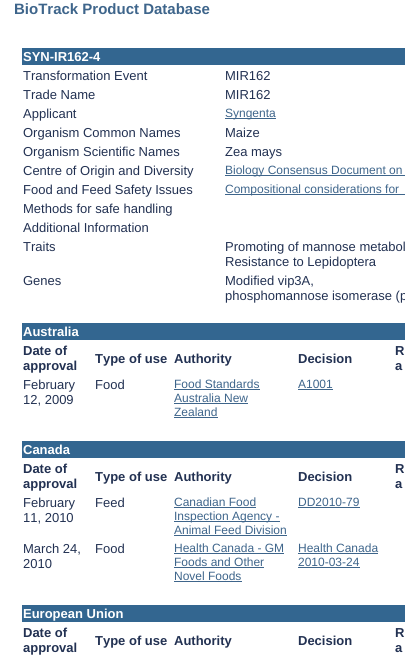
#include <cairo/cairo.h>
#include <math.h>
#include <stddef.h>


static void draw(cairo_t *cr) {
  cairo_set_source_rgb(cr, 1, 1, 1);
  cairo_paint(cr);
  cairo_set_source_rgb(cr, 51 / 255.0, 102 / 255.0, 144 / 255.0);
  cairo_rectangle(cr, 22, 48, 383, 17);
  cairo_fill(cr);
  cairo_set_source_rgb(cr, 62 / 255.0, 101 / 255.0, 139 / 255.0);
  cairo_rectangle(cr, 225, 118, 51, 1);
  cairo_fill(cr);
  cairo_rectangle(cr, 225, 175, 180, 1);
  cairo_fill(cr);
  cairo_rectangle(cr, 225, 194, 180, 1);
  cairo_fill(cr);
  cairo_set_source_rgb(cr, 51 / 255.0, 102 / 255.0, 144 / 255.0);
  cairo_rectangle(cr, 22, 323, 383, 17);
  cairo_fill(cr);
  cairo_set_source_rgb(cr, 62 / 255.0, 101 / 255.0, 139 / 255.0);
  cairo_rectangle(cr, 174, 389, 86, 1);
  cairo_fill(cr);
  cairo_rectangle(cr, 174, 403, 74, 1);
  cairo_fill(cr);
  cairo_rectangle(cr, 174, 417, 44, 1);
  cairo_fill(cr);
  cairo_rectangle(cr, 298, 389, 35, 1);
  cairo_fill(cr);
  cairo_set_source_rgb(cr, 51 / 255.0, 102 / 255.0, 144 / 255.0);
  cairo_rectangle(cr, 22, 441, 383, 17);
  cairo_fill(cr);
  cairo_set_source_rgb(cr, 62 / 255.0, 101 / 255.0, 139 / 255.0);
  cairo_rectangle(cr, 174, 507, 82, 1);
  cairo_fill(cr);
  cairo_rectangle(cr, 174, 521, 106, 1);
  cairo_fill(cr);
  cairo_rectangle(cr, 174, 535, 113, 1);
  cairo_fill(cr);
  cairo_rectangle(cr, 298, 507, 62, 1);
  cairo_fill(cr);
  cairo_rectangle(cr, 174, 553, 110, 1);
  cairo_fill(cr);
  cairo_rectangle(cr, 174, 567, 90, 1);
  cairo_fill(cr);
  cairo_rectangle(cr, 174, 581, 68, 1);
  cairo_fill(cr);
  cairo_rectangle(cr, 298, 553, 80, 1);
  cairo_fill(cr);
  cairo_rectangle(cr, 298, 567, 62, 1);
  cairo_fill(cr);
  cairo_set_source_rgb(cr, 51 / 255.0, 102 / 255.0, 144 / 255.0);
  cairo_rectangle(cr, 22, 605, 383, 17);
  cairo_fill(cr);
  cairo_select_font_face(cr, "Liberation Sans", CAIRO_FONT_SLANT_NORMAL, CAIRO_FONT_WEIGHT_BOLD);
  cairo_set_font_size(cr, 15);
  cairo_set_source_rgb(cr, 62 / 255.0, 101 / 255.0, 139 / 255.0);
  cairo_move_to(cr, 14, 14);
  cairo_show_text(cr, "BioTrack Product Database");
  cairo_set_font_size(cr, 13);
  cairo_set_source_rgb(cr, 1, 1, 1);
  cairo_move_to(cr, 23, 61);
  cairo_show_text(cr, "SYN-IR162-4");
  cairo_select_font_face(cr, "Liberation Sans", CAIRO_FONT_SLANT_NORMAL, CAIRO_FONT_WEIGHT_NORMAL);
  cairo_set_source_rgb(cr, 34 / 255.0, 49 / 255.0, 82 / 255.0);
  cairo_move_to(cr, 23, 80);
  cairo_show_text(cr, "Transformation Event");
  cairo_move_to(cr, 225, 80);
  cairo_show_text(cr, "MIR162");
  cairo_move_to(cr, 23, 99);
  cairo_show_text(cr, "Trade Name");
  cairo_move_to(cr, 225, 99);
  cairo_show_text(cr, "MIR162");
  cairo_move_to(cr, 23, 118);
  cairo_show_text(cr, "Applicant");
  cairo_set_font_size(cr, 12);
  cairo_set_source_rgb(cr, 62 / 255.0, 101 / 255.0, 139 / 255.0);
  cairo_move_to(cr, 225, 117);
  cairo_show_text(cr, "Syngenta");
  cairo_set_font_size(cr, 13);
  cairo_set_source_rgb(cr, 34 / 255.0, 49 / 255.0, 82 / 255.0);
  cairo_move_to(cr, 23, 137);
  cairo_show_text(cr, "Organism Common Names");
  cairo_move_to(cr, 225, 137);
  cairo_show_text(cr, "Maize");
  cairo_move_to(cr, 23, 156);
  cairo_show_text(cr, "Organism Scientific Names");
  cairo_move_to(cr, 225, 156);
  cairo_show_text(cr, "Zea mays");
  cairo_move_to(cr, 23, 175);
  cairo_show_text(cr, "Centre of Origin and Diversity");
  cairo_set_font_size(cr, 12);
  cairo_set_source_rgb(cr, 62 / 255.0, 101 / 255.0, 139 / 255.0);
  cairo_move_to(cr, 225, 174);
  cairo_show_text(cr, "Biology Consensus Document on");
  cairo_set_font_size(cr, 13);
  cairo_set_source_rgb(cr, 34 / 255.0, 49 / 255.0, 82 / 255.0);
  cairo_move_to(cr, 23, 194);
  cairo_show_text(cr, "Food and Feed Safety Issues");
  cairo_set_font_size(cr, 12);
  cairo_set_source_rgb(cr, 62 / 255.0, 101 / 255.0, 139 / 255.0);
  cairo_move_to(cr, 225, 193);
  cairo_show_text(cr, "Compositional considerations for");
  cairo_set_font_size(cr, 13);
  cairo_set_source_rgb(cr, 34 / 255.0, 49 / 255.0, 82 / 255.0);
  cairo_move_to(cr, 23, 213);
  cairo_show_text(cr, "Methods for safe handling");
  cairo_move_to(cr, 23, 232);
  cairo_show_text(cr, "Additional Information");
  cairo_move_to(cr, 23, 251);
  cairo_show_text(cr, "Traits");
  cairo_move_to(cr, 225, 251);
  cairo_show_text(cr, "Promoting of mannose metabol");
  cairo_move_to(cr, 225, 266);
  cairo_show_text(cr, "Resistance to Lepidoptera");
  cairo_move_to(cr, 23, 285);
  cairo_show_text(cr, "Genes");
  cairo_move_to(cr, 225, 285);
  cairo_show_text(cr, "Modified vip3A,");
  cairo_move_to(cr, 225, 300);
  cairo_show_text(cr, "phosphomannose isomerase (p");
  cairo_select_font_face(cr, "Liberation Sans", CAIRO_FONT_SLANT_NORMAL, CAIRO_FONT_WEIGHT_BOLD);
  cairo_set_source_rgb(cr, 1, 1, 1);
  cairo_move_to(cr, 23, 336);
  cairo_show_text(cr, "Australia");
  cairo_set_source_rgb(cr, 34 / 255.0, 49 / 255.0, 82 / 255.0);
  cairo_move_to(cr, 23, 355);
  cairo_show_text(cr, "Date of");
  cairo_move_to(cr, 23, 370);
  cairo_show_text(cr, "approval");
  cairo_move_to(cr, 95, 363);
  cairo_show_text(cr, "Type of use");
  cairo_move_to(cr, 174, 363);
  cairo_show_text(cr, "Authority");
  cairo_move_to(cr, 298, 363);
  cairo_show_text(cr, "Decision");
  cairo_move_to(cr, 395, 355);
  cairo_show_text(cr, "R");
  cairo_move_to(cr, 395, 370);
  cairo_show_text(cr, "a");
  cairo_select_font_face(cr, "Liberation Sans", CAIRO_FONT_SLANT_NORMAL, CAIRO_FONT_WEIGHT_NORMAL);
  cairo_move_to(cr, 23, 389);
  cairo_show_text(cr, "February");
  cairo_move_to(cr, 23, 404);
  cairo_show_text(cr, "12, 2009");
  cairo_move_to(cr, 95, 389);
  cairo_show_text(cr, "Food");
  cairo_set_font_size(cr, 12);
  cairo_set_source_rgb(cr, 62 / 255.0, 101 / 255.0, 139 / 255.0);
  cairo_move_to(cr, 174, 388);
  cairo_show_text(cr, "Food Standards");
  cairo_move_to(cr, 174, 402);
  cairo_show_text(cr, "Australia New");
  cairo_move_to(cr, 174, 416);
  cairo_show_text(cr, "Zealand");
  cairo_move_to(cr, 298, 388);
  cairo_show_text(cr, "A1001");
  cairo_select_font_face(cr, "Liberation Sans", CAIRO_FONT_SLANT_NORMAL, CAIRO_FONT_WEIGHT_BOLD);
  cairo_set_font_size(cr, 13);
  cairo_set_source_rgb(cr, 1, 1, 1);
  cairo_move_to(cr, 23, 454);
  cairo_show_text(cr, "Canada");
  cairo_set_source_rgb(cr, 34 / 255.0, 49 / 255.0, 82 / 255.0);
  cairo_move_to(cr, 23, 473);
  cairo_show_text(cr, "Date of");
  cairo_move_to(cr, 23, 488);
  cairo_show_text(cr, "approval");
  cairo_move_to(cr, 95, 481);
  cairo_show_text(cr, "Type of use");
  cairo_move_to(cr, 174, 481);
  cairo_show_text(cr, "Authority");
  cairo_move_to(cr, 298, 481);
  cairo_show_text(cr, "Decision");
  cairo_move_to(cr, 395, 473);
  cairo_show_text(cr, "R");
  cairo_move_to(cr, 395, 488);
  cairo_show_text(cr, "a");
  cairo_select_font_face(cr, "Liberation Sans", CAIRO_FONT_SLANT_NORMAL, CAIRO_FONT_WEIGHT_NORMAL);
  cairo_move_to(cr, 23, 507);
  cairo_show_text(cr, "February");
  cairo_move_to(cr, 23, 522);
  cairo_show_text(cr, "11, 2010");
  cairo_move_to(cr, 95, 507);
  cairo_show_text(cr, "Feed");
  cairo_set_font_size(cr, 12);
  cairo_set_source_rgb(cr, 62 / 255.0, 101 / 255.0, 139 / 255.0);
  cairo_move_to(cr, 174, 506);
  cairo_show_text(cr, "Canadian Food");
  cairo_move_to(cr, 174, 520);
  cairo_show_text(cr, "Inspection Agency -");
  cairo_move_to(cr, 174, 534);
  cairo_show_text(cr, "Animal Feed Division");
  cairo_move_to(cr, 298, 506);
  cairo_show_text(cr, "DD2010-79");
  cairo_set_font_size(cr, 13);
  cairo_set_source_rgb(cr, 34 / 255.0, 49 / 255.0, 82 / 255.0);
  cairo_move_to(cr, 23, 553);
  cairo_show_text(cr, "March 24,");
  cairo_move_to(cr, 23, 568);
  cairo_show_text(cr, "2010");
  cairo_move_to(cr, 95, 553);
  cairo_show_text(cr, "Food");
  cairo_set_font_size(cr, 12);
  cairo_set_source_rgb(cr, 62 / 255.0, 101 / 255.0, 139 / 255.0);
  cairo_move_to(cr, 174, 552);
  cairo_show_text(cr, "Health Canada - GM");
  cairo_move_to(cr, 174, 566);
  cairo_show_text(cr, "Foods and Other");
  cairo_move_to(cr, 174, 580);
  cairo_show_text(cr, "Novel Foods");
  cairo_move_to(cr, 298, 552);
  cairo_show_text(cr, "Health Canada");
  cairo_move_to(cr, 298, 566);
  cairo_show_text(cr, "2010-03-24");
  cairo_select_font_face(cr, "Liberation Sans", CAIRO_FONT_SLANT_NORMAL, CAIRO_FONT_WEIGHT_BOLD);
  cairo_set_font_size(cr, 13);
  cairo_set_source_rgb(cr, 1, 1, 1);
  cairo_move_to(cr, 23, 618);
  cairo_show_text(cr, "European Union");
  cairo_set_source_rgb(cr, 34 / 255.0, 49 / 255.0, 82 / 255.0);
  cairo_move_to(cr, 23, 637);
  cairo_show_text(cr, "Date of");
  cairo_move_to(cr, 23, 652);
  cairo_show_text(cr, "approval");
  cairo_move_to(cr, 95, 645);
  cairo_show_text(cr, "Type of use");
  cairo_move_to(cr, 174, 645);
  cairo_show_text(cr, "Authority");
  cairo_move_to(cr, 298, 645);
  cairo_show_text(cr, "Decision");
  cairo_move_to(cr, 395, 637);
  cairo_show_text(cr, "R");
  cairo_move_to(cr, 395, 652);
  cairo_show_text(cr, "a");
}

int main(void) {
  cairo_surface_t *surface = cairo_image_surface_create(CAIRO_FORMAT_RGB24, 405, 661);
  cairo_t *cr = cairo_create(surface);
  cairo_font_options_t *options = cairo_font_options_create();
  cairo_font_options_set_hint_metrics(options, CAIRO_HINT_METRICS_OFF);
  cairo_font_options_set_hint_style(options, CAIRO_HINT_STYLE_NONE);
  cairo_set_font_options(cr, options);
  cairo_set_miter_limit(cr, 4);
  draw(cr);
  cairo_surface_write_to_png(surface, "out.png");
  cairo_font_options_destroy(options);
  cairo_destroy(cr);
  cairo_surface_destroy(surface);
  return 0;
}
